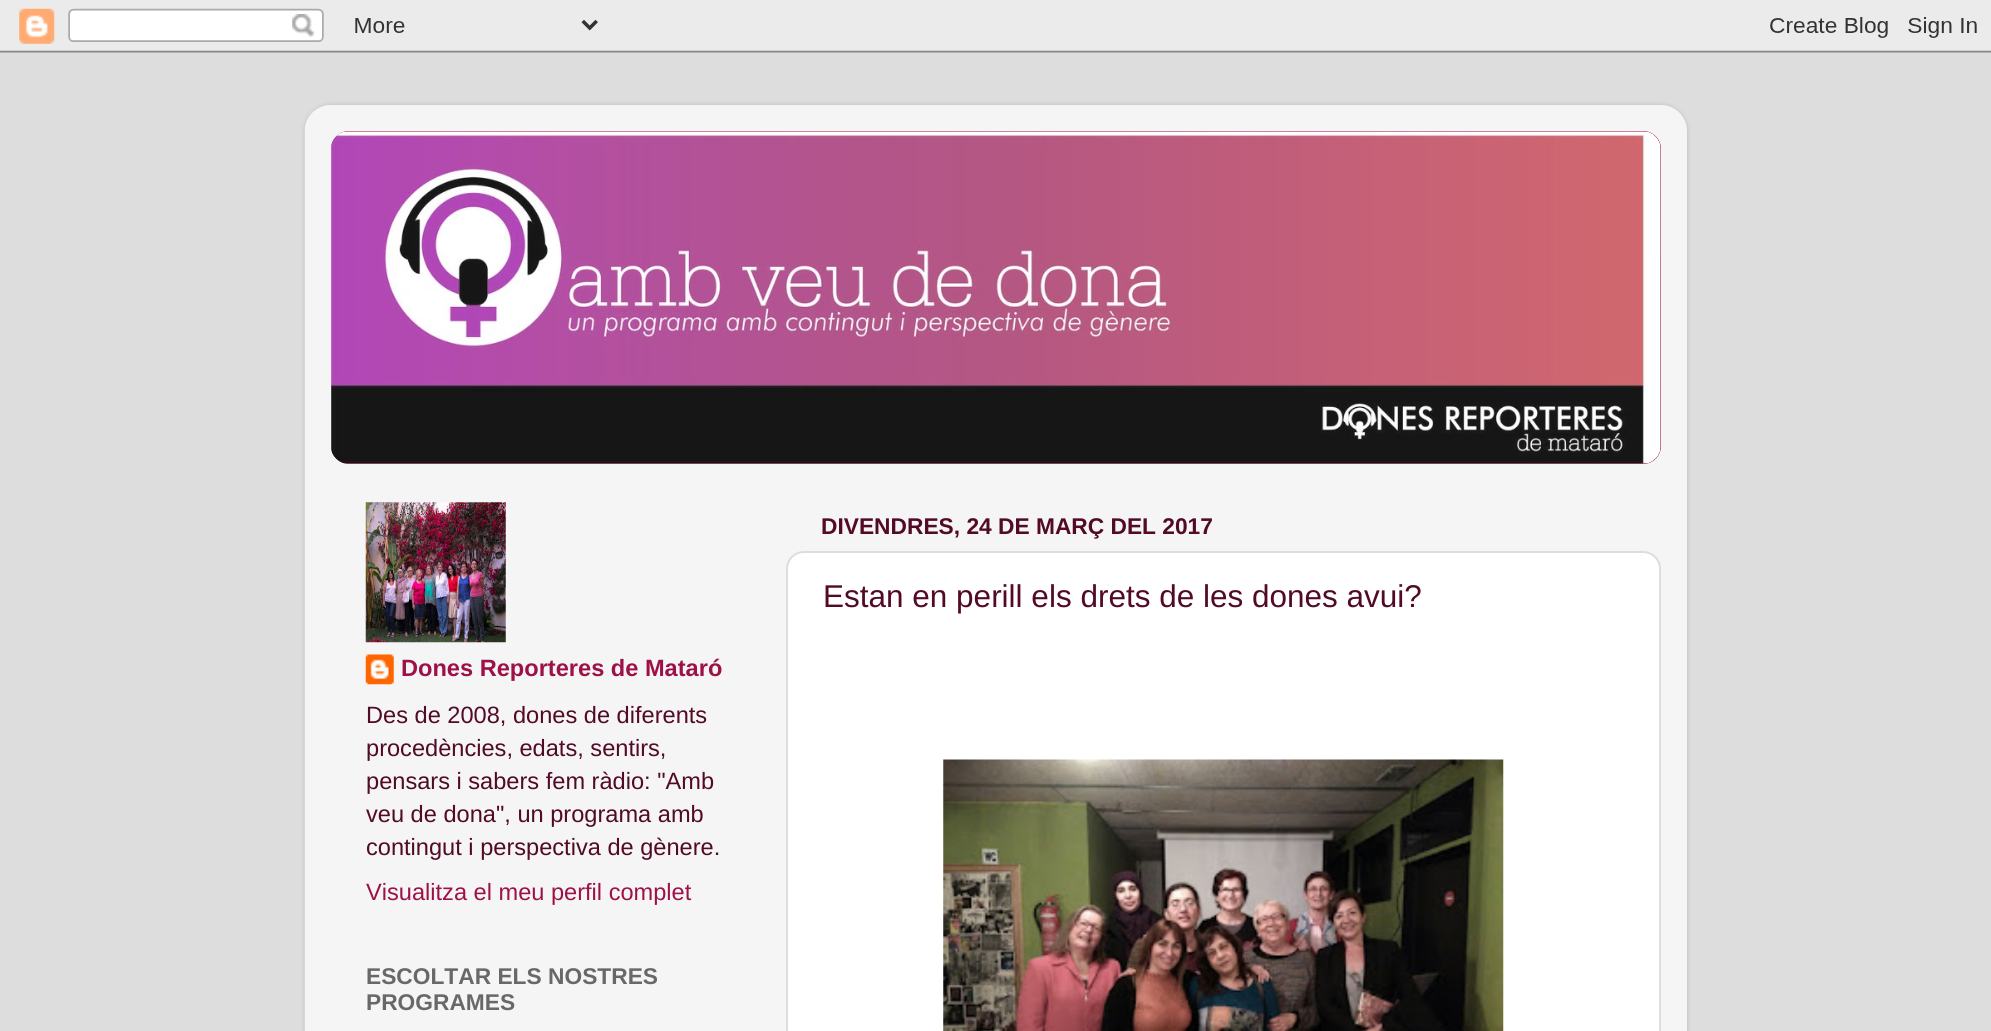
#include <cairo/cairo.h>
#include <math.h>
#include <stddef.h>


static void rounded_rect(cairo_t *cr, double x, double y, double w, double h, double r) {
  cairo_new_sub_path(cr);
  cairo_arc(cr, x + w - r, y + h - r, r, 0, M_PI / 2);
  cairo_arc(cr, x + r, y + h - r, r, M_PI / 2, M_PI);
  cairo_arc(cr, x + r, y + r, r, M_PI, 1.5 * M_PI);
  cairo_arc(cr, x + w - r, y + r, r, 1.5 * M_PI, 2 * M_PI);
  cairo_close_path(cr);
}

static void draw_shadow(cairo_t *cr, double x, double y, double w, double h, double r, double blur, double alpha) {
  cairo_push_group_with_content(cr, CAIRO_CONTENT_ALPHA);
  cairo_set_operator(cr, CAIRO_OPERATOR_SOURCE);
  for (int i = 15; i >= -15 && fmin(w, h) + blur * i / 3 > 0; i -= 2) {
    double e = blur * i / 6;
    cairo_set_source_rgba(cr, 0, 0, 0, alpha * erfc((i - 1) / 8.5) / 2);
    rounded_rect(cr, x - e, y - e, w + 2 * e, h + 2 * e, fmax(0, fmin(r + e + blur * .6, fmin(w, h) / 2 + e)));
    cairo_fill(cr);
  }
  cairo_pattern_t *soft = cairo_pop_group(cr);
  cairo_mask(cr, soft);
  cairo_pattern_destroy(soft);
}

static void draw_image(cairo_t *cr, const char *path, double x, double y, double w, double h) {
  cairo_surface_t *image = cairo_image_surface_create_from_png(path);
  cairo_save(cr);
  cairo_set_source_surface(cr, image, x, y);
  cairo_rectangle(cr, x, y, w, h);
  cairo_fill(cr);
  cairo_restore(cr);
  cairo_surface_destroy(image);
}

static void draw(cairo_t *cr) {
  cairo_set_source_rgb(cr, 221 / 255.0, 221 / 255.0, 221 / 255.0);
  cairo_paint(cr);
  draw_image(cr, "images/1.png", 0, 0, 1991, 53);
  cairo_save(cr);
  cairo_set_fill_rule(cr, CAIRO_FILL_RULE_EVEN_ODD);
  cairo_new_path(cr);
  cairo_move_to(cr, 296, 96);
  cairo_line_to(cr, 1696, 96);
  cairo_line_to(cr, 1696, 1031);
  cairo_line_to(cr, 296, 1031);
  cairo_close_path(cr);
  cairo_move_to(cr, 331, 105);
  cairo_line_to(cr, 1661, 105);
  cairo_curve_to(cr, 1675.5, 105, 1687, 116.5, 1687, 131);
  cairo_line_to(cr, 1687, 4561);
  cairo_curve_to(cr, 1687, 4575.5, 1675.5, 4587, 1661, 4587);
  cairo_line_to(cr, 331, 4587);
  cairo_curve_to(cr, 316.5, 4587, 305, 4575.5, 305, 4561);
  cairo_line_to(cr, 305, 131);
  cairo_curve_to(cr, 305, 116.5, 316.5, 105, 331, 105);
  cairo_close_path(cr);
  cairo_clip(cr);
  cairo_set_source_rgb(cr, 0, 0, 0);
  draw_shadow(cr, 305, 105, 1382, 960, 26, 2.5, 0.15);
  cairo_restore(cr);
  draw_image(cr, "images/2.png", 304, 105, 1383, 926);
  cairo_set_source_rgb(cr, 158 / 255.0, 17 / 255.0, 72 / 255.0);
  rounded_rect(cr, 331, 131, 1330, 333, 18);
  cairo_fill(cr);
  draw_image(cr, "images/3.png", 331, 131, 1330, 128);
  draw_image(cr, "images/4.png", 331, 131, 1330, 333);
  cairo_set_source_rgb(cr, 1, 1, 1);
  rounded_rect(cr, 787, 552, 873, 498, 17);
  cairo_fill_preserve(cr);
  cairo_set_source_rgb(cr, 221 / 255.0, 221 / 255.0, 221 / 255.0);
  cairo_stroke(cr);
  draw_image(cr, "images/5.png", 943, 759, 561, 272);
  draw_image(cr, "images/6.png", 365, 502, 141, 141);
  draw_image(cr, "images/7.png", 365, 654, 29, 31);
  cairo_select_font_face(cr, "Liberation Sans", CAIRO_FONT_SLANT_NORMAL, CAIRO_FONT_WEIGHT_BOLD);
  cairo_set_font_size(cr, 22.75);
  cairo_set_source_rgb(cr, 82 / 255.0, 10 / 255.0, 39 / 255.0);
  cairo_move_to(cr, 821, 534);
  cairo_show_text(cr, "DIVENDRES, 24 DE MARÇ DEL 2017");
  cairo_select_font_face(cr, "Liberation Sans", CAIRO_FONT_SLANT_NORMAL, CAIRO_FONT_WEIGHT_NORMAL);
  cairo_set_font_size(cr, 31.5);
  cairo_move_to(cr, 823, 607);
  cairo_show_text(cr, "Estan en perill els drets de les dones avui?");
  cairo_select_font_face(cr, "Liberation Sans", CAIRO_FONT_SLANT_NORMAL, CAIRO_FONT_WEIGHT_BOLD);
  cairo_set_font_size(cr, 23.6);
  cairo_set_source_rgb(cr, 158 / 255.0, 17 / 255.0, 72 / 255.0);
  cairo_move_to(cr, 401, 676);
  cairo_show_text(cr, "Dones Reporteres de Mataró");
  cairo_select_font_face(cr, "Liberation Sans", CAIRO_FONT_SLANT_NORMAL, CAIRO_FONT_WEIGHT_NORMAL);
  cairo_set_source_rgb(cr, 82 / 255.0, 10 / 255.0, 39 / 255.0);
  cairo_move_to(cr, 366, 723);
  cairo_show_text(cr, "Des de 2008, dones de diferents");
  cairo_move_to(cr, 366, 756);
  cairo_show_text(cr, "procedències, edats, sentirs,");
  cairo_move_to(cr, 366, 789);
  cairo_show_text(cr, "pensars i sabers fem ràdio: \"Amb");
  cairo_move_to(cr, 366, 822);
  cairo_show_text(cr, "veu de dona\", un programa amb");
  cairo_move_to(cr, 366, 855);
  cairo_show_text(cr, "contingut i perspectiva de gènere.");
  cairo_set_source_rgb(cr, 158 / 255.0, 17 / 255.0, 72 / 255.0);
  cairo_move_to(cr, 366, 900);
  cairo_show_text(cr, "Visualitza el meu perfil complet");
  cairo_select_font_face(cr, "Liberation Sans", CAIRO_FONT_SLANT_NORMAL, CAIRO_FONT_WEIGHT_BOLD);
  cairo_set_font_size(cr, 22.75);
  cairo_set_source_rgb(cr, 104 / 255.0, 104 / 255.0, 104 / 255.0);
  cairo_move_to(cr, 366, 984);
  cairo_show_text(cr, "ESCOLTAR ELS NOSTRES");
  cairo_move_to(cr, 366, 1010);
  cairo_show_text(cr, "PROGRAMES");
}

int main(void) {
  cairo_surface_t *surface = cairo_image_surface_create(CAIRO_FORMAT_RGB24, 1991, 1031);
  cairo_t *cr = cairo_create(surface);
  cairo_font_options_t *options = cairo_font_options_create();
  cairo_font_options_set_hint_metrics(options, CAIRO_HINT_METRICS_OFF);
  cairo_font_options_set_hint_style(options, CAIRO_HINT_STYLE_NONE);
  cairo_set_font_options(cr, options);
  cairo_set_miter_limit(cr, 4);
  draw(cr);
  cairo_surface_write_to_png(surface, "out.png");
  cairo_font_options_destroy(options);
  cairo_destroy(cr);
  cairo_surface_destroy(surface);
  return 0;
}
